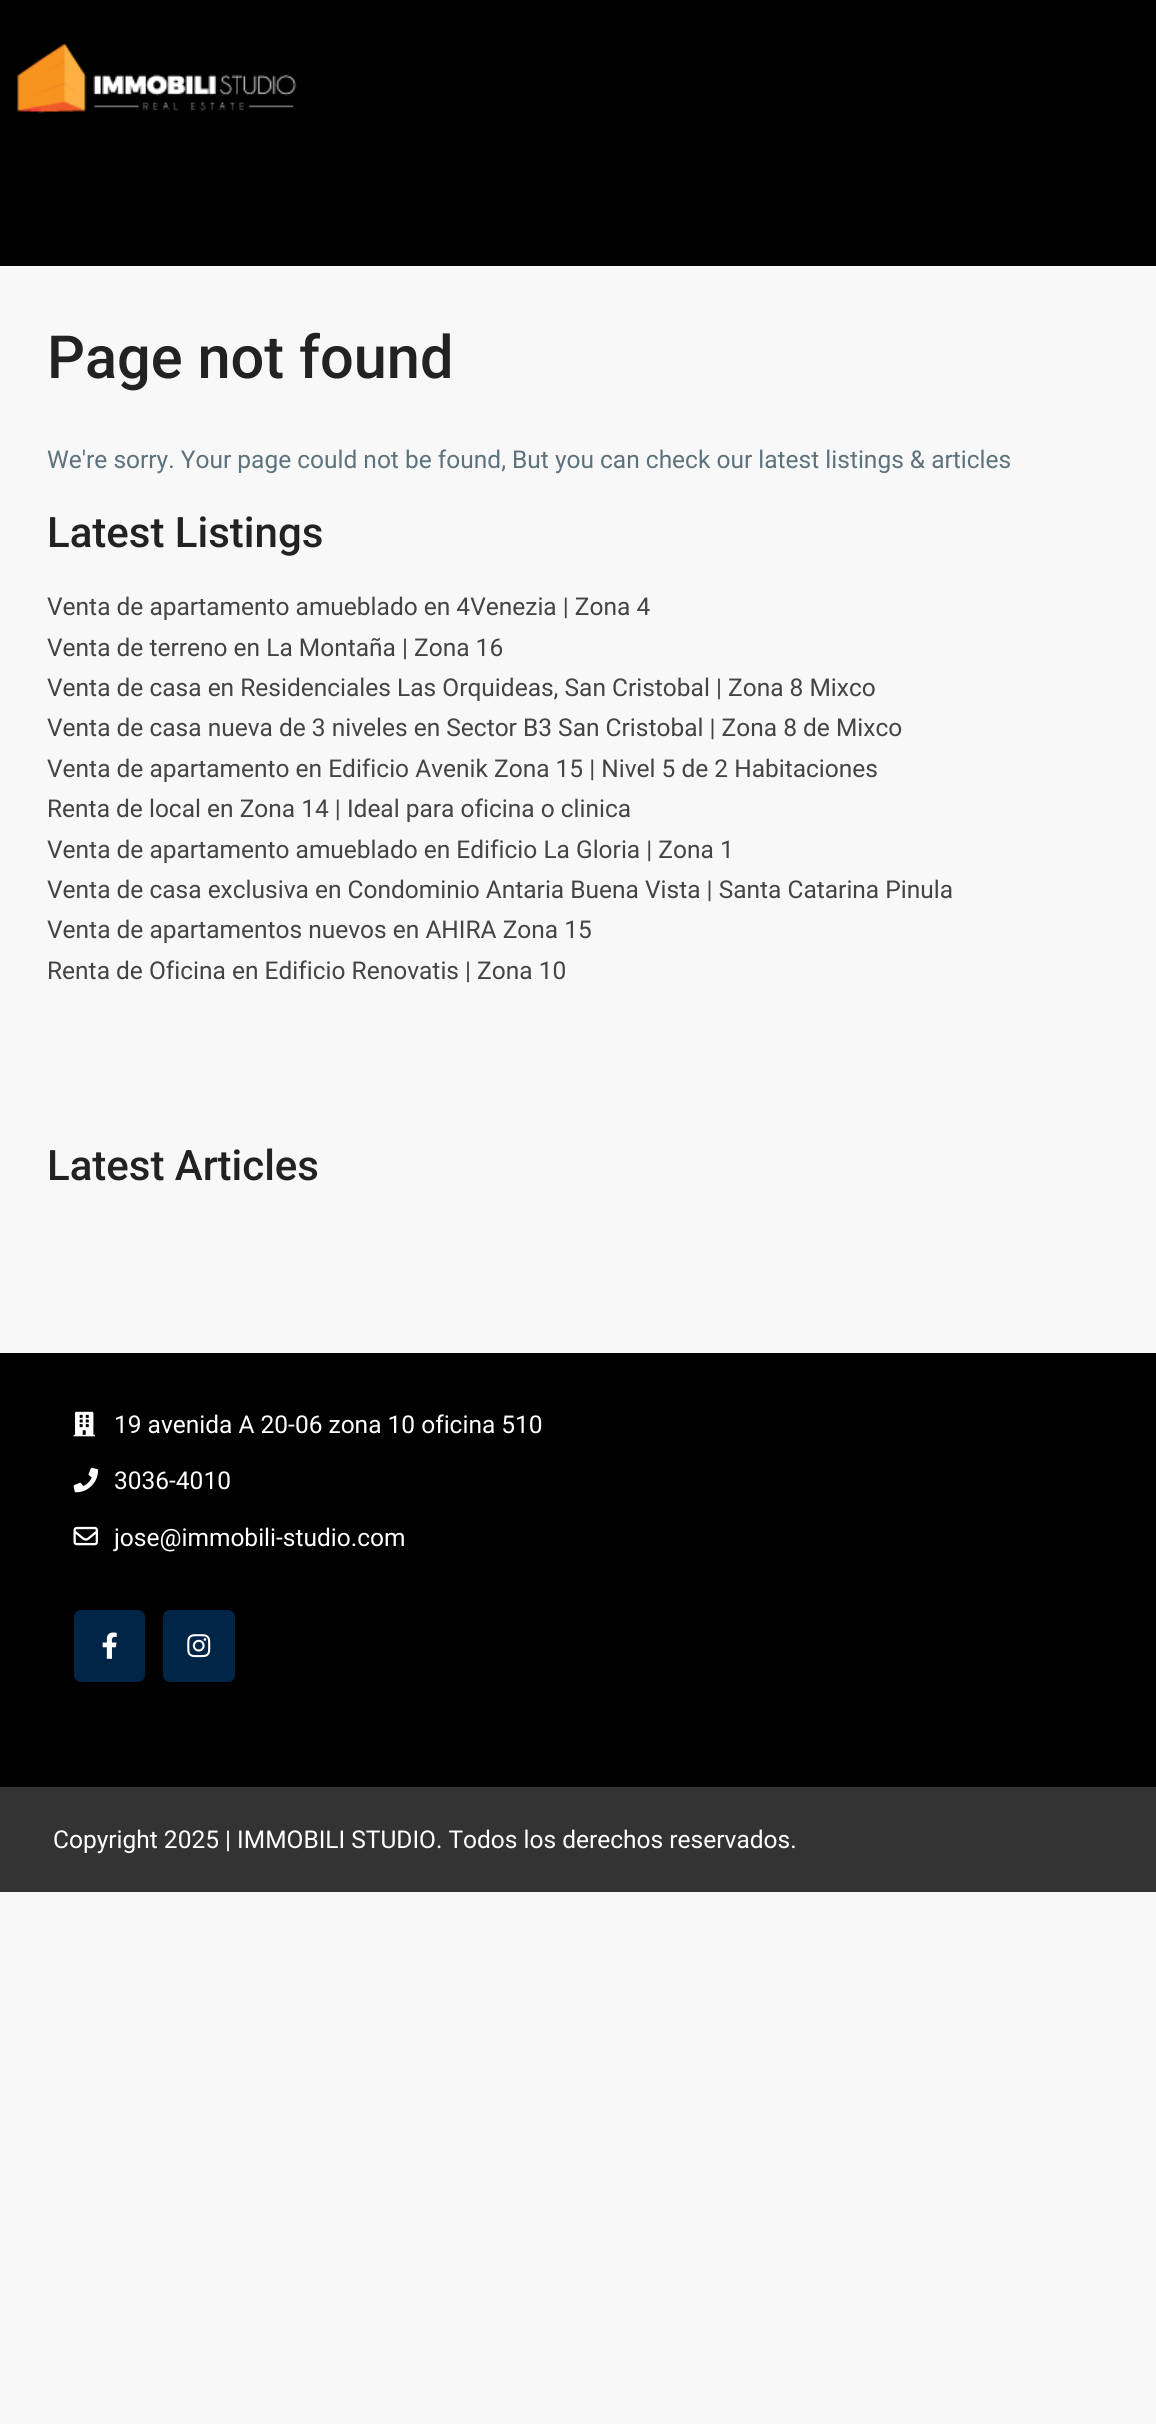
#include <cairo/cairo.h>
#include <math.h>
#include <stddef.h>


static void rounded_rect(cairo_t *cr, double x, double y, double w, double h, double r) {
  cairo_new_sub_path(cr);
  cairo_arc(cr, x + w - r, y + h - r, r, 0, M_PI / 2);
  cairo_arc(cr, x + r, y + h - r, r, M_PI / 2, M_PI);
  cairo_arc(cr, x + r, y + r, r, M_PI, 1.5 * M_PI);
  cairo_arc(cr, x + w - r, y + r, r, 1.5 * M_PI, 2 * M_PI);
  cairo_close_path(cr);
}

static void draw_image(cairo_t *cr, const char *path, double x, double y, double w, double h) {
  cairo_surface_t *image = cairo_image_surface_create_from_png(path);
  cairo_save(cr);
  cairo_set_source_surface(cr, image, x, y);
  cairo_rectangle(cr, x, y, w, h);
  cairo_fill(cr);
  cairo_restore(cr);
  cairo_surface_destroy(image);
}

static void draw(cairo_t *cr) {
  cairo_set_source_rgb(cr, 248 / 255.0, 248 / 255.0, 248 / 255.0);
  cairo_paint(cr);
  cairo_set_source_rgb(cr, 0, 0, 0);
  cairo_rectangle(cr, 0, 0, 1156, 266);
  cairo_fill(cr);
  draw_image(cr, "images/1.png", 17, 43, 280, 71);
  cairo_rectangle(cr, 0, 1353, 1156, 434);
  cairo_fill(cr);
  draw_image(cr, "images/2.png", 73, 1411, 22, 26);
  draw_image(cr, "images/3.png", 73, 1467, 26, 26);
  draw_image(cr, "images/4.png", 73, 1526, 25, 20);
  cairo_set_source_rgb(cr, 0, 37 / 255.0, 71 / 255.0);
  rounded_rect(cr, 74, 1610, 71, 72, 7);
  cairo_fill(cr);
  draw_image(cr, "images/5.png", 102, 1632, 15, 27);
  rounded_rect(cr, 163, 1610, 72, 72, 7);
  cairo_fill(cr);
  draw_image(cr, "images/6.png", 187, 1634, 24, 24);
  cairo_set_source_rgb(cr, 51 / 255.0, 51 / 255.0, 51 / 255.0);
  cairo_rectangle(cr, 0, 1787, 1156, 105);
  cairo_fill(cr);
  cairo_select_font_face(cr, "Roboto Medium", CAIRO_FONT_SLANT_NORMAL, CAIRO_FONT_WEIGHT_NORMAL);
  cairo_set_font_size(cr, 59.5);
  cairo_set_source_rgb(cr, 34 / 255.0, 34 / 255.0, 34 / 255.0);
  cairo_move_to(cr, 47, 378);
  cairo_show_text(cr, "Page not found");
  cairo_select_font_face(cr, "Roboto", CAIRO_FONT_SLANT_NORMAL, CAIRO_FONT_WEIGHT_NORMAL);
  cairo_set_font_size(cr, 24.5);
  cairo_set_source_rgb(cr, 92 / 255.0, 114 / 255.0, 125 / 255.0);
  cairo_move_to(cr, 47, 468);
  cairo_show_text(cr, "We're sorry. Your page could not be found, But you can check our latest listings & articles");
  cairo_select_font_face(cr, "Roboto Medium", CAIRO_FONT_SLANT_NORMAL, CAIRO_FONT_WEIGHT_NORMAL);
  cairo_set_font_size(cr, 42);
  cairo_set_source_rgb(cr, 34 / 255.0, 34 / 255.0, 34 / 255.0);
  cairo_move_to(cr, 47, 547);
  cairo_show_text(cr, "Latest Listings");
  cairo_select_font_face(cr, "Roboto", CAIRO_FONT_SLANT_NORMAL, CAIRO_FONT_WEIGHT_NORMAL);
  cairo_set_font_size(cr, 24.5);
  cairo_set_source_rgb(cr, 68 / 255.0, 68 / 255.0, 68 / 255.0);
  cairo_move_to(cr, 47, 615);
  cairo_show_text(cr, "Venta de apartamento amueblado en 4Venezia | Zona 4");
  cairo_move_to(cr, 47, 656);
  cairo_show_text(cr, "Venta de terreno en La Montaña | Zona 16");
  cairo_move_to(cr, 47, 696);
  cairo_show_text(cr, "Venta de casa en Residenciales Las Orquideas, San Cristobal | Zona 8 Mixco");
  cairo_move_to(cr, 47, 736);
  cairo_show_text(cr, "Venta de casa nueva de 3 niveles en Sector B3 San Cristobal | Zona 8 de Mixco");
  cairo_move_to(cr, 47, 777);
  cairo_show_text(cr, "Venta de apartamento en Edificio Avenik Zona 15 | Nivel 5 de 2 Habitaciones");
  cairo_move_to(cr, 47, 817);
  cairo_show_text(cr, "Renta de local en Zona 14 | Ideal para oficina o clinica");
  cairo_move_to(cr, 47, 858);
  cairo_show_text(cr, "Venta de apartamento amueblado en Edificio La Gloria | Zona 1");
  cairo_move_to(cr, 47, 898);
  cairo_show_text(cr, "Venta de casa exclusiva en Condominio Antaria Buena Vista | Santa Catarina Pinula");
  cairo_move_to(cr, 47, 938);
  cairo_show_text(cr, "Venta de apartamentos nuevos en AHIRA Zona 15");
  cairo_move_to(cr, 47, 979);
  cairo_show_text(cr, "Renta de Oficina en Edificio Renovatis | Zona 10");
  cairo_select_font_face(cr, "Roboto Medium", CAIRO_FONT_SLANT_NORMAL, CAIRO_FONT_WEIGHT_NORMAL);
  cairo_set_font_size(cr, 42);
  cairo_set_source_rgb(cr, 34 / 255.0, 34 / 255.0, 34 / 255.0);
  cairo_move_to(cr, 47, 1180);
  cairo_show_text(cr, "Latest Articles");
  cairo_select_font_face(cr, "Roboto", CAIRO_FONT_SLANT_NORMAL, CAIRO_FONT_WEIGHT_NORMAL);
  cairo_set_font_size(cr, 24.5);
  cairo_set_source_rgb(cr, 1, 1, 1);
  cairo_move_to(cr, 114, 1433);
  cairo_show_text(cr, "19 avenida A 20-06 zona 10 oficina 510");
  cairo_move_to(cr, 114, 1489);
  cairo_show_text(cr, "3036-4010");
  cairo_move_to(cr, 114, 1546);
  cairo_show_text(cr, "jose@immobili-studio.com");
  cairo_move_to(cr, 53, 1848);
  cairo_show_text(cr, "Copyright 2025 | IMMOBILI STUDIO. Todos los derechos reservados.");
}

int main(void) {
  cairo_surface_t *surface = cairo_image_surface_create(CAIRO_FORMAT_RGB24, 1156, 2424);
  cairo_t *cr = cairo_create(surface);
  cairo_font_options_t *options = cairo_font_options_create();
  cairo_font_options_set_hint_metrics(options, CAIRO_HINT_METRICS_OFF);
  cairo_font_options_set_hint_style(options, CAIRO_HINT_STYLE_NONE);
  cairo_set_font_options(cr, options);
  cairo_set_miter_limit(cr, 4);
  draw(cr);
  cairo_surface_write_to_png(surface, "out.png");
  cairo_font_options_destroy(options);
  cairo_destroy(cr);
  cairo_surface_destroy(surface);
  return 0;
}
